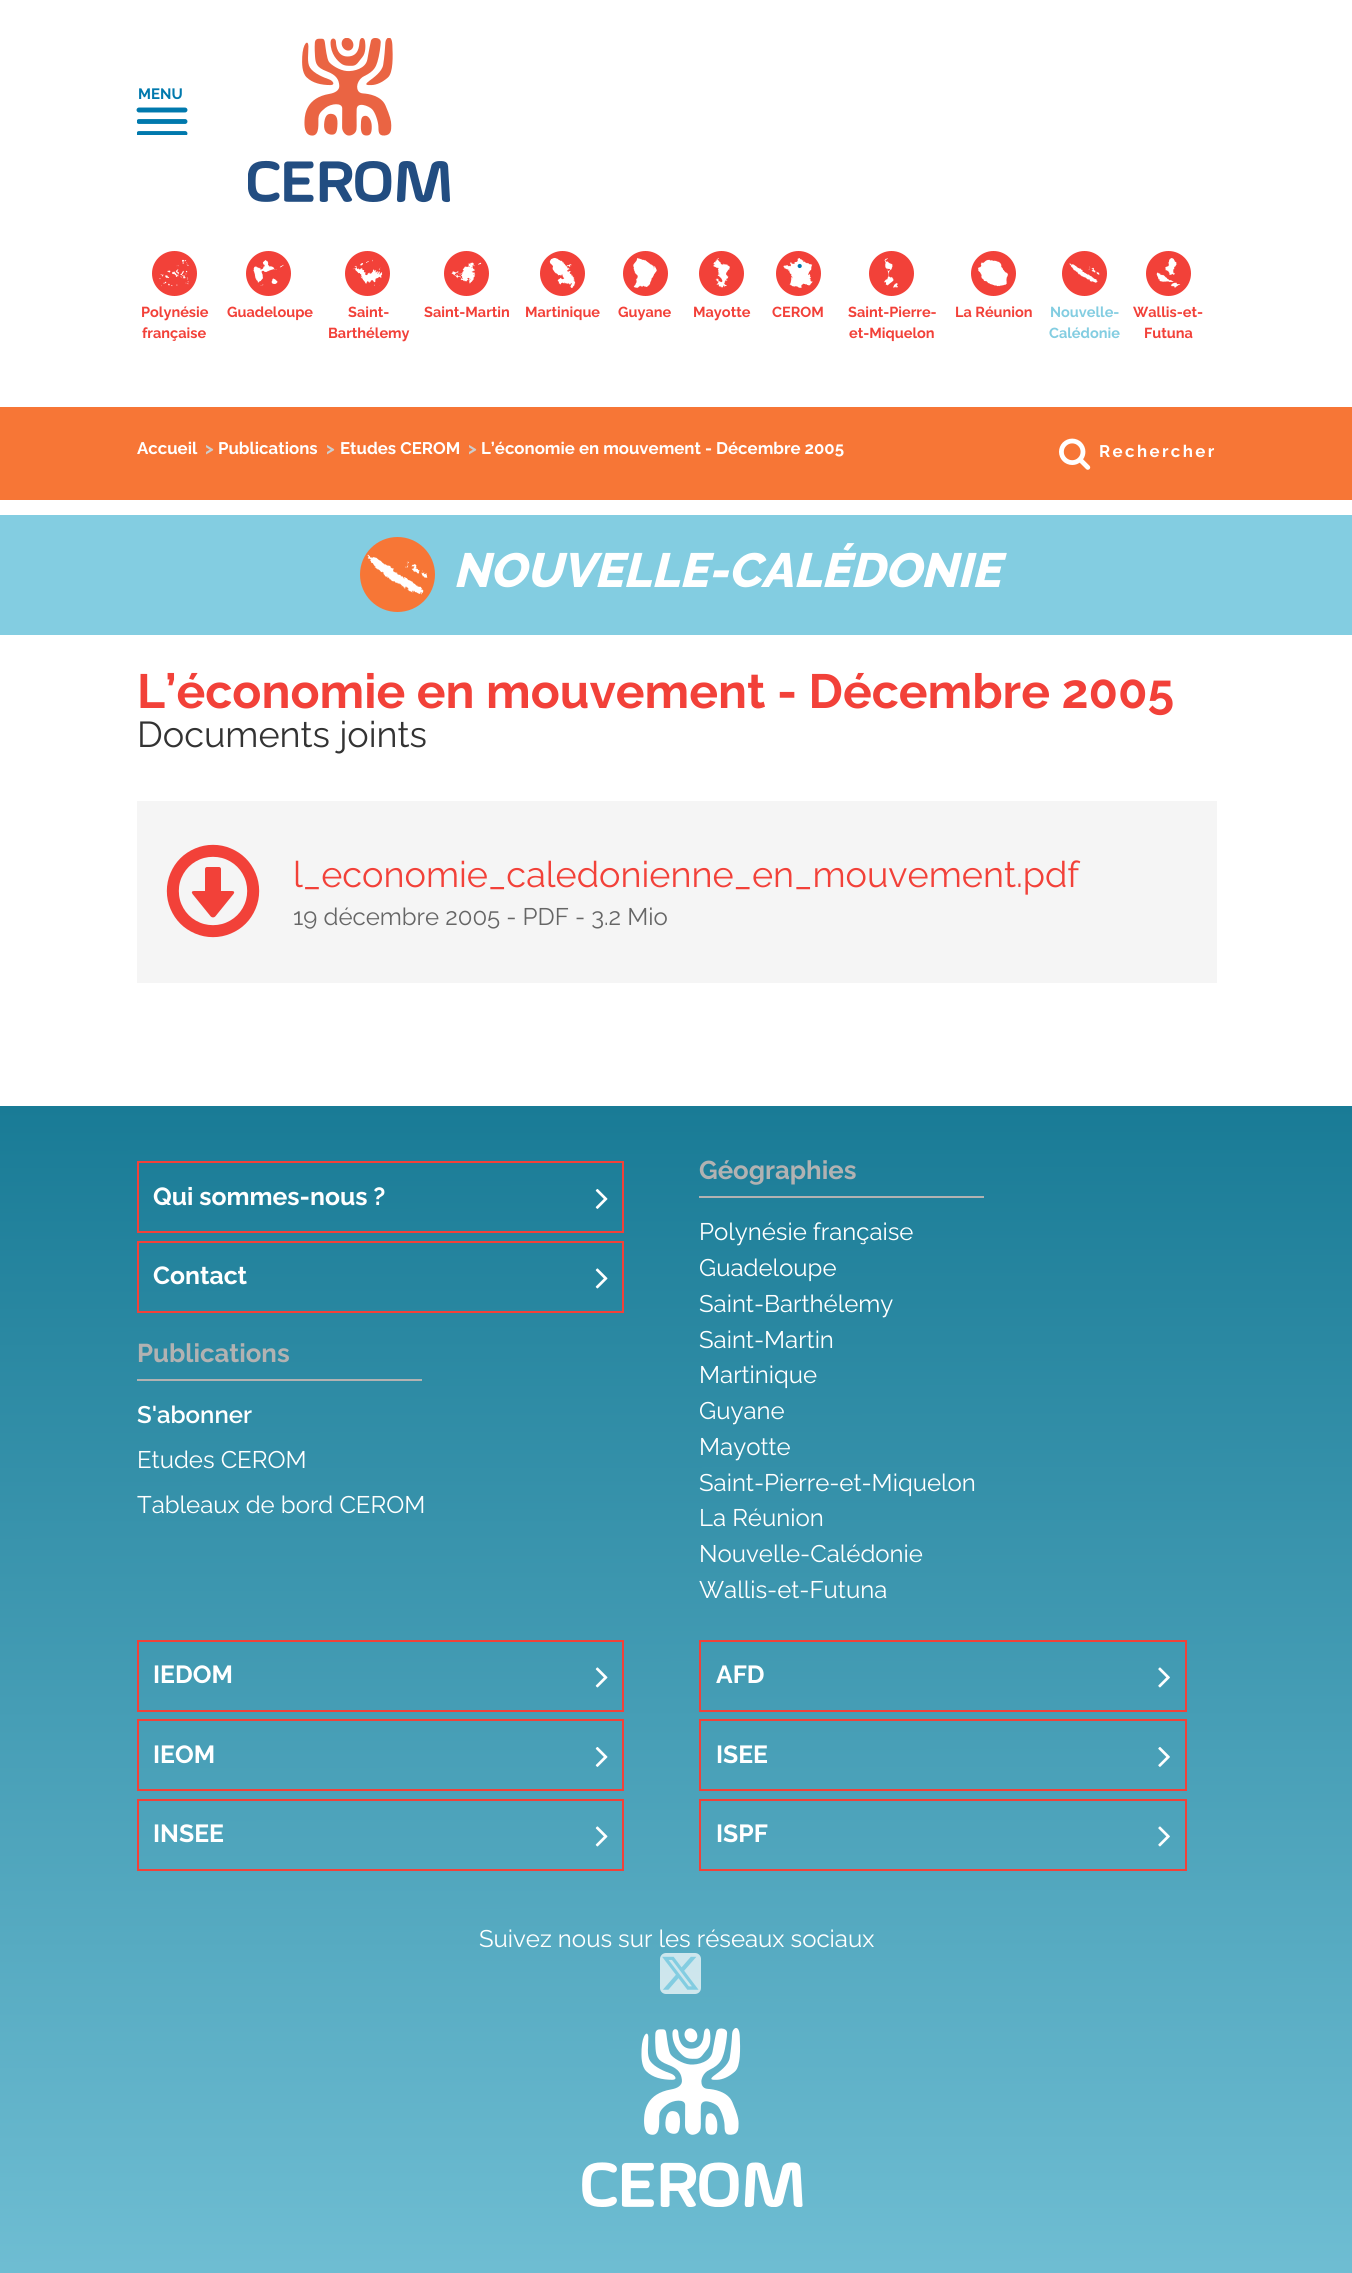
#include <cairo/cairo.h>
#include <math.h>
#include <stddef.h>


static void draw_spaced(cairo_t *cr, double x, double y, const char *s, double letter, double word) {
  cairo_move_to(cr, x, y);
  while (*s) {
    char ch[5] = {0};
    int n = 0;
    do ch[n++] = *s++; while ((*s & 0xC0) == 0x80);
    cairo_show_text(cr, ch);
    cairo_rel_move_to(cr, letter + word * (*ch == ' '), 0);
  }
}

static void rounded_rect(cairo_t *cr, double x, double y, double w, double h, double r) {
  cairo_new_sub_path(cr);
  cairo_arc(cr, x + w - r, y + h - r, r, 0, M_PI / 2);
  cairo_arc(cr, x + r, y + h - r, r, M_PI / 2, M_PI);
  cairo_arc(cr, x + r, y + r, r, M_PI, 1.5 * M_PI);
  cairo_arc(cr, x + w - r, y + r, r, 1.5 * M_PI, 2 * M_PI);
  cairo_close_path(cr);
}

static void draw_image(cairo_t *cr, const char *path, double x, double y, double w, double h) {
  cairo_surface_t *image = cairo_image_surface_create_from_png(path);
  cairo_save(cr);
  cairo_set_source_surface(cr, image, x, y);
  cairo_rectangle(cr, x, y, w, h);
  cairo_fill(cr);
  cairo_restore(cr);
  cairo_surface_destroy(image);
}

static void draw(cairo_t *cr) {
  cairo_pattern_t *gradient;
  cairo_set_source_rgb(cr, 1, 1, 1);
  cairo_paint(cr);
  cairo_new_path(cr);
  cairo_move_to(cr, 139, 110);
  cairo_line_to(cr, 185, 110);
  cairo_set_source_rgb(cr, 0, 121 / 255.0, 173 / 255.0);
  cairo_set_line_width(cr, 4.9);
  cairo_set_line_cap(cr, CAIRO_LINE_CAP_ROUND);
  cairo_stroke(cr);
  cairo_save(cr);
  cairo_rectangle(cr, 137, 86, 51, 49);
  cairo_clip(cr);
  cairo_new_path(cr);
  cairo_move_to(cr, 139, 121.5);
  cairo_line_to(cr, 185, 121.5);
  cairo_move_to(cr, 139, 133.5);
  cairo_line_to(cr, 185, 133.5);
  cairo_stroke(cr);
  cairo_restore(cr);
  draw_image(cr, "images/1.png", 248, 38, 202, 165);
  cairo_set_source_rgb(cr, 242 / 255.0, 65 / 255.0, 57 / 255.0);
  cairo_arc(cr, 174.5, 273.5, 22.5, 0, 2 * M_PI);
  cairo_fill(cr);
  draw_image(cr, "images/2.png", 159, 259, 30, 28);
  cairo_arc(cr, 268.5, 273.5, 22.5, 0, 2 * M_PI);
  cairo_fill(cr);
  draw_image(cr, "images/3.png", 253, 260, 31, 26);
  cairo_arc(cr, 367.5, 273.5, 22.5, 0, 2 * M_PI);
  cairo_fill(cr);
  draw_image(cr, "images/4.png", 352, 259, 31, 27);
  cairo_arc(cr, 466.5, 273.5, 22.5, 0, 2 * M_PI);
  cairo_fill(cr);
  draw_image(cr, "images/5.png", 451, 262, 31, 22);
  cairo_arc(cr, 562.5, 273.5, 22.5, 0, 2 * M_PI);
  cairo_fill(cr);
  draw_image(cr, "images/6.png", 549, 258, 27, 30);
  cairo_arc(cr, 645.5, 273.5, 22.5, 0, 2 * M_PI);
  cairo_fill(cr);
  draw_image(cr, "images/7.png", 633, 258, 24, 30);
  cairo_arc(cr, 721.5, 273.5, 22.5, 0, 2 * M_PI);
  cairo_fill(cr);
  draw_image(cr, "images/8.png", 713, 258, 17, 30);
  cairo_arc(cr, 798.5, 273.5, 22.5, 0, 2 * M_PI);
  cairo_fill(cr);
  draw_image(cr, "images/9.png", 783, 258, 30, 30);
  cairo_arc(cr, 891.5, 273.5, 22.5, 0, 2 * M_PI);
  cairo_fill(cr);
  draw_image(cr, "images/10.png", 884, 258, 14, 30);
  cairo_arc(cr, 993.5, 273.5, 22.5, 0, 2 * M_PI);
  cairo_fill(cr);
  draw_image(cr, "images/11.png", 978, 259, 30, 28);
  cairo_arc(cr, 1084.5, 273.5, 22.5, 0, 2 * M_PI);
  cairo_fill(cr);
  draw_image(cr, "images/12.png", 1069, 263, 31, 20);
  cairo_arc(cr, 1168.5, 273.5, 22.5, 0, 2 * M_PI);
  cairo_fill(cr);
  draw_image(cr, "images/13.png", 1156, 258, 25, 30);
  cairo_set_source_rgb(cr, 247 / 255.0, 118 / 255.0, 54 / 255.0);
  cairo_rectangle(cr, 0, 407, 1352, 93);
  cairo_fill(cr);
  draw_image(cr, "images/14.png", 1059, 438, 32, 32);
  cairo_set_source_rgb(cr, 131 / 255.0, 205 / 255.0, 225 / 255.0);
  cairo_rectangle(cr, 0, 515, 1352, 120);
  cairo_fill(cr);
  cairo_set_source_rgb(cr, 247 / 255.0, 118 / 255.0, 54 / 255.0);
  cairo_arc(cr, 397.5, 574.5, 37.5, 0, 2 * M_PI);
  cairo_fill(cr);
  draw_image(cr, "images/15.png", 367, 554, 61, 41);
  cairo_set_source_rgb(cr, 245 / 255.0, 245 / 255.0, 245 / 255.0);
  cairo_rectangle(cr, 137, 801, 1080, 182);
  cairo_fill(cr);
  draw_image(cr, "images/16.png", 166, 844, 94, 94);
  gradient = cairo_pattern_create_linear(676, 1106, 677, 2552);
  cairo_pattern_add_color_stop_rgba(gradient, 0, 25 / 255.0, 123 / 255.0, 150 / 255.0, 1);
  cairo_pattern_add_color_stop_rgba(gradient, 1, 131 / 255.0, 205 / 255.0, 225 / 255.0, 1);
  cairo_set_source(cr, gradient);
  cairo_pattern_destroy(gradient);
  cairo_rectangle(cr, 0, 1106, 1352, 1167);
  cairo_fill(cr);
  cairo_rectangle(cr, 138, 1162, 485, 70);
  cairo_set_source_rgb(cr, 242 / 255.0, 65 / 255.0, 57 / 255.0);
  cairo_set_line_width(cr, 2);
  cairo_set_line_cap(cr, CAIRO_LINE_CAP_BUTT);
  cairo_stroke(cr);
  draw_image(cr, "images/17.png", 595, 1189, 13, 20);
  cairo_rectangle(cr, 138, 1242, 485, 70);
  cairo_stroke(cr);
  draw_image(cr, "images/18.png", 595, 1268, 13, 21);
  cairo_set_source_rgb(cr, 178 / 255.0, 178 / 255.0, 178 / 255.0);
  cairo_rectangle(cr, 137, 1379, 285, 2);
  cairo_fill(cr);
  cairo_rectangle(cr, 699, 1196, 285, 2);
  cairo_fill(cr);
  cairo_rectangle(cr, 138, 1641, 485, 70);
  cairo_set_source_rgb(cr, 242 / 255.0, 65 / 255.0, 57 / 255.0);
  cairo_stroke(cr);
  draw_image(cr, "images/19.png", 595, 1667, 13, 21);
  cairo_rectangle(cr, 138, 1720, 485, 70);
  cairo_stroke(cr);
  draw_image(cr, "images/20.png", 595, 1747, 13, 20);
  cairo_rectangle(cr, 138, 1800, 485, 70);
  cairo_stroke(cr);
  draw_image(cr, "images/21.png", 595, 1826, 13, 21);
  cairo_rectangle(cr, 700, 1641, 486, 70);
  cairo_stroke(cr);
  draw_image(cr, "images/22.png", 1158, 1667, 12, 21);
  cairo_rectangle(cr, 700, 1720, 486, 70);
  cairo_stroke(cr);
  draw_image(cr, "images/23.png", 1158, 1747, 12, 20);
  cairo_rectangle(cr, 700, 1800, 486, 70);
  cairo_stroke(cr);
  draw_image(cr, "images/24.png", 1158, 1826, 12, 21);
  cairo_set_source_rgba(cr, 1, 1, 1, 0.7);
  rounded_rect(cr, 660, 1953, 41, 41, 6);
  cairo_fill(cr);
  draw_image(cr, "images/25.png", 662, 1956, 37, 34);
  draw_image(cr, "images/26.png", 582, 2028, 221, 179);
  cairo_select_font_face(cr, "Raleway", CAIRO_FONT_SLANT_NORMAL, CAIRO_FONT_WEIGHT_BOLD);
  cairo_set_font_size(cr, 15);
  cairo_set_source_rgb(cr, 0, 121 / 255.0, 173 / 255.0);
  cairo_move_to(cr, 138, 99);
  cairo_show_text(cr, "MENU");
  cairo_set_font_size(cr, 14.5);
  cairo_set_source_rgb(cr, 242 / 255.0, 65 / 255.0, 57 / 255.0);
  cairo_move_to(cr, 141, 317);
  cairo_show_text(cr, "Polynésie");
  cairo_move_to(cr, 142, 338);
  cairo_show_text(cr, "française");
  cairo_move_to(cr, 227, 317);
  cairo_show_text(cr, "Guadeloupe");
  cairo_move_to(cr, 348, 317);
  cairo_show_text(cr, "Saint-");
  cairo_move_to(cr, 328, 338);
  cairo_show_text(cr, "Barthélemy");
  cairo_move_to(cr, 424, 317);
  cairo_show_text(cr, "Saint-Martin");
  cairo_move_to(cr, 525, 317);
  cairo_show_text(cr, "Martinique");
  cairo_move_to(cr, 618, 317);
  cairo_show_text(cr, "Guyane");
  cairo_move_to(cr, 693, 317);
  cairo_show_text(cr, "Mayotte");
  cairo_move_to(cr, 772, 317);
  cairo_show_text(cr, "CEROM");
  cairo_move_to(cr, 848, 317);
  cairo_show_text(cr, "Saint-Pierre-");
  cairo_move_to(cr, 849, 338);
  cairo_show_text(cr, "et-Miquelon");
  cairo_move_to(cr, 955, 317);
  cairo_show_text(cr, "La Réunion");
  cairo_set_source_rgb(cr, 131 / 255.0, 205 / 255.0, 225 / 255.0);
  cairo_move_to(cr, 1050, 317);
  cairo_show_text(cr, "Nouvelle-");
  cairo_move_to(cr, 1049, 338);
  cairo_show_text(cr, "Calédonie");
  cairo_set_source_rgb(cr, 242 / 255.0, 65 / 255.0, 57 / 255.0);
  cairo_move_to(cr, 1133, 317);
  cairo_show_text(cr, "Wallis-et-");
  cairo_move_to(cr, 1144, 338);
  cairo_show_text(cr, "Futuna");
  cairo_set_font_size(cr, 16.8);
  cairo_set_source_rgb(cr, 1, 1, 1);
  cairo_move_to(cr, 137, 454);
  cairo_show_text(cr, "Accueil");
  cairo_set_source_rgb(cr, 204 / 255.0, 204 / 255.0, 204 / 255.0);
  cairo_move_to(cr, 205, 454);
  cairo_show_text(cr, ">");
  cairo_set_source_rgb(cr, 1, 1, 1);
  cairo_move_to(cr, 218, 454);
  cairo_show_text(cr, "Publications");
  cairo_set_source_rgb(cr, 204 / 255.0, 204 / 255.0, 204 / 255.0);
  cairo_move_to(cr, 326, 454);
  cairo_show_text(cr, ">");
  cairo_set_source_rgb(cr, 1, 1, 1);
  cairo_move_to(cr, 340, 454);
  cairo_show_text(cr, "Etudes CEROM");
  cairo_set_source_rgb(cr, 204 / 255.0, 204 / 255.0, 204 / 255.0);
  cairo_move_to(cr, 468, 454);
  cairo_show_text(cr, ">");
  cairo_set_source_rgb(cr, 1, 1, 1);
  cairo_move_to(cr, 481, 454);
  cairo_show_text(cr, "L’économie en mouvement - Décembre 2005");
  draw_spaced(cr, 1099, 457, "Rechercher", 2.4, 0);
  cairo_select_font_face(cr, "Raleway ExtraBold", CAIRO_FONT_SLANT_ITALIC, CAIRO_FONT_WEIGHT_NORMAL);
  cairo_set_font_size(cr, 48);
  cairo_move_to(cr, 453, 587);
  cairo_show_text(cr, "NOUVELLE-CALÉDONIE");
  cairo_select_font_face(cr, "Raleway", CAIRO_FONT_SLANT_NORMAL, CAIRO_FONT_WEIGHT_BOLD);
  cairo_set_source_rgb(cr, 242 / 255.0, 65 / 255.0, 57 / 255.0);
  cairo_move_to(cr, 137, 708);
  cairo_show_text(cr, "L’économie en mouvement - Décembre 2005");
  cairo_select_font_face(cr, "Raleway", CAIRO_FONT_SLANT_NORMAL, CAIRO_FONT_WEIGHT_NORMAL);
  cairo_set_font_size(cr, 36);
  cairo_set_source_rgb(cr, 51 / 255.0, 51 / 255.0, 51 / 255.0);
  cairo_move_to(cr, 137, 747);
  cairo_show_text(cr, "Documents joints");
  cairo_set_source_rgb(cr, 242 / 255.0, 65 / 255.0, 57 / 255.0);
  cairo_move_to(cr, 293, 887);
  cairo_show_text(cr, "l_economie_caledonienne_en_mouvement.pdf");
  cairo_set_font_size(cr, 24);
  cairo_set_source_rgb(cr, 102 / 255.0, 102 / 255.0, 102 / 255.0);
  cairo_move_to(cr, 293, 925);
  cairo_show_text(cr, "19 décembre 2005 - PDF - 3.2 Mio");
  cairo_select_font_face(cr, "Raleway", CAIRO_FONT_SLANT_NORMAL, CAIRO_FONT_WEIGHT_BOLD);
  cairo_set_font_size(cr, 24.75);
  cairo_set_source_rgb(cr, 1, 1, 1);
  cairo_move_to(cr, 153, 1205);
  cairo_show_text(cr, "Qui sommes-nous ?");
  cairo_move_to(cr, 153, 1284);
  cairo_show_text(cr, "Contact");
  cairo_set_font_size(cr, 25.75);
  cairo_set_source_rgb(cr, 178 / 255.0, 178 / 255.0, 178 / 255.0);
  cairo_move_to(cr, 137, 1362);
  cairo_show_text(cr, "Publications");
  cairo_select_font_face(cr, "Raleway SemiBold", CAIRO_FONT_SLANT_NORMAL, CAIRO_FONT_WEIGHT_NORMAL);
  cairo_set_font_size(cr, 24);
  cairo_set_source_rgb(cr, 1, 1, 1);
  cairo_move_to(cr, 137, 1423);
  cairo_show_text(cr, "S'abonner");
  cairo_select_font_face(cr, "Raleway", CAIRO_FONT_SLANT_NORMAL, CAIRO_FONT_WEIGHT_NORMAL);
  cairo_move_to(cr, 137, 1468);
  cairo_show_text(cr, "Etudes CEROM");
  cairo_move_to(cr, 137, 1513);
  cairo_show_text(cr, "Tableaux de bord CEROM");
  cairo_select_font_face(cr, "Raleway", CAIRO_FONT_SLANT_NORMAL, CAIRO_FONT_WEIGHT_BOLD);
  cairo_set_font_size(cr, 25.75);
  cairo_set_source_rgb(cr, 178 / 255.0, 178 / 255.0, 178 / 255.0);
  cairo_move_to(cr, 699, 1179);
  cairo_show_text(cr, "Géographies");
  cairo_select_font_face(cr, "Raleway", CAIRO_FONT_SLANT_NORMAL, CAIRO_FONT_WEIGHT_NORMAL);
  cairo_set_font_size(cr, 24);
  cairo_set_source_rgb(cr, 1, 1, 1);
  cairo_move_to(cr, 699, 1240);
  cairo_show_text(cr, "Polynésie française");
  cairo_move_to(cr, 699, 1276);
  cairo_show_text(cr, "Guadeloupe");
  cairo_move_to(cr, 699, 1312);
  cairo_show_text(cr, "Saint-Barthélemy");
  cairo_move_to(cr, 699, 1348);
  cairo_show_text(cr, "Saint-Martin");
  cairo_move_to(cr, 699, 1383);
  cairo_show_text(cr, "Martinique");
  cairo_move_to(cr, 699, 1419);
  cairo_show_text(cr, "Guyane");
  cairo_move_to(cr, 699, 1455);
  cairo_show_text(cr, "Mayotte");
  cairo_move_to(cr, 699, 1491);
  cairo_show_text(cr, "Saint-Pierre-et-Miquelon");
  cairo_move_to(cr, 699, 1526);
  cairo_show_text(cr, "La Réunion");
  cairo_move_to(cr, 699, 1562);
  cairo_show_text(cr, "Nouvelle-Calédonie");
  cairo_move_to(cr, 699, 1598);
  cairo_show_text(cr, "Wallis-et-Futuna");
  cairo_select_font_face(cr, "Raleway", CAIRO_FONT_SLANT_NORMAL, CAIRO_FONT_WEIGHT_BOLD);
  cairo_set_font_size(cr, 24.75);
  cairo_move_to(cr, 153, 1683);
  cairo_show_text(cr, "IEDOM");
  cairo_move_to(cr, 153, 1763);
  cairo_show_text(cr, "IEOM");
  cairo_move_to(cr, 153, 1842);
  cairo_show_text(cr, "INSEE");
  cairo_move_to(cr, 716, 1683);
  cairo_show_text(cr, "AFD");
  cairo_move_to(cr, 716, 1763);
  cairo_show_text(cr, "ISEE");
  cairo_move_to(cr, 716, 1842);
  cairo_show_text(cr, "ISPF");
  cairo_select_font_face(cr, "Raleway", CAIRO_FONT_SLANT_NORMAL, CAIRO_FONT_WEIGHT_NORMAL);
  cairo_set_font_size(cr, 24);
  cairo_move_to(cr, 479, 1947);
  cairo_show_text(cr, "Suivez nous sur les réseaux sociaux");
}

int main(void) {
  cairo_surface_t *surface = cairo_image_surface_create(CAIRO_FORMAT_RGB24, 1352, 2273);
  cairo_t *cr = cairo_create(surface);
  cairo_font_options_t *options = cairo_font_options_create();
  cairo_font_options_set_hint_metrics(options, CAIRO_HINT_METRICS_OFF);
  cairo_font_options_set_hint_style(options, CAIRO_HINT_STYLE_NONE);
  cairo_set_font_options(cr, options);
  cairo_set_miter_limit(cr, 4);
  draw(cr);
  cairo_surface_write_to_png(surface, "out.png");
  cairo_font_options_destroy(options);
  cairo_destroy(cr);
  cairo_surface_destroy(surface);
  return 0;
}
